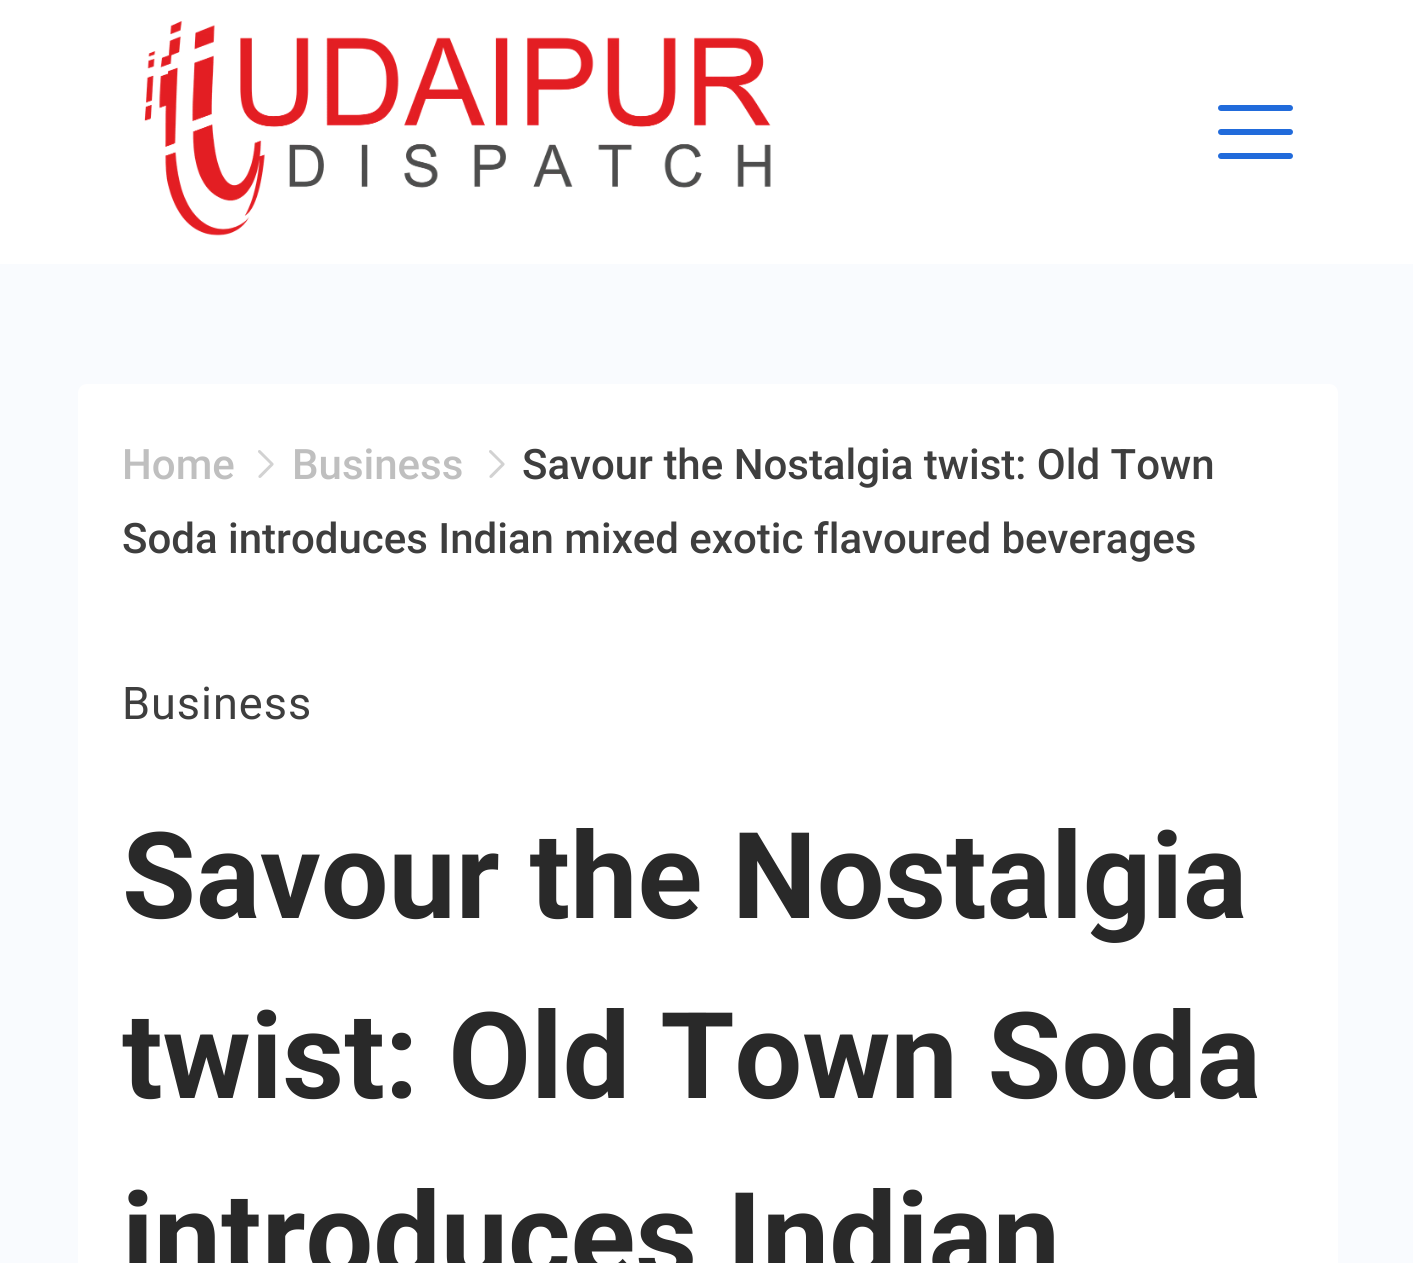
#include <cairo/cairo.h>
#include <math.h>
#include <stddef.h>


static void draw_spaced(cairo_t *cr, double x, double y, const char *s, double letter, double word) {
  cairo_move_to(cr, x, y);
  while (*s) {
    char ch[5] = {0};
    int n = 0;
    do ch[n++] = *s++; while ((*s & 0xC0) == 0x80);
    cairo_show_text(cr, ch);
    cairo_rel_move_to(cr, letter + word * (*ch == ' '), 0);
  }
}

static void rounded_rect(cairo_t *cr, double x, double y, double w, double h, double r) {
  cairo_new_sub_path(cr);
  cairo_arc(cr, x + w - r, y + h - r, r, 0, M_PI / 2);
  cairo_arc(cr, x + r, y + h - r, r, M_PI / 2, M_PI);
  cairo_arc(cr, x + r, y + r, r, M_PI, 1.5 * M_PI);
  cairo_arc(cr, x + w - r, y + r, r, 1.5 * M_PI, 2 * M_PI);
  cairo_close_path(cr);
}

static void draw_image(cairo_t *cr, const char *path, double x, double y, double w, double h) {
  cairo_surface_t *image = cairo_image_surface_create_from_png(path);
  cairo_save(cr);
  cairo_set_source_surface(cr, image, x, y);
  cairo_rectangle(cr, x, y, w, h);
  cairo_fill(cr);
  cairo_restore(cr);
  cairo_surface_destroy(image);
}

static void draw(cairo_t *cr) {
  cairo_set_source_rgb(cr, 249 / 255.0, 251 / 255.0, 254 / 255.0);
  cairo_paint(cr);
  cairo_set_source_rgb(cr, 1, 1, 1);
  cairo_rectangle(cr, 0, 0, 1413, 264);
  cairo_fill(cr);
  draw_image(cr, "images/1.png", 144, 21, 627, 215);
  cairo_set_source_rgb(cr, 33 / 255.0, 107 / 255.0, 219 / 255.0);
  rounded_rect(cr, 1218, 129, 75, 6, 3);
  cairo_fill(cr);
  rounded_rect(cr, 1218, 105, 75, 6, 3);
  cairo_fill(cr);
  rounded_rect(cr, 1218, 153, 75, 6, 3);
  cairo_fill(cr);
  cairo_set_source_rgb(cr, 1, 1, 1);
  rounded_rect(cr, 78, 384, 1260, 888, 9);
  cairo_fill(cr);
  draw_image(cr, "images/2.png", 258, 450, 16, 28);
  draw_image(cr, "images/2.png", 489, 450, 16, 28);
  cairo_select_font_face(cr, "Roboto Medium", CAIRO_FONT_SLANT_NORMAL, CAIRO_FONT_WEIGHT_NORMAL);
  cairo_set_font_size(cr, 42);
  cairo_set_source_rgb(cr, 191 / 255.0, 191 / 255.0, 191 / 255.0);
  cairo_move_to(cr, 122, 479);
  cairo_show_text(cr, "Home");
  cairo_move_to(cr, 292, 479);
  cairo_show_text(cr, "Business");
  cairo_set_source_rgb(cr, 62 / 255.0, 62 / 255.0, 62 / 255.0);
  cairo_move_to(cr, 522, 479);
  cairo_show_text(cr, "Savour the Nostalgia twist: Old Town");
  cairo_move_to(cr, 122, 553);
  cairo_show_text(cr, "Soda introduces Indian mixed exotic flavoured beverages");
  cairo_select_font_face(cr, "Roboto", CAIRO_FONT_SLANT_NORMAL, CAIRO_FONT_WEIGHT_NORMAL);
  cairo_set_font_size(cr, 45);
  draw_spaced(cr, 122, 719, "Business", 1, 0);
  cairo_select_font_face(cr, "Roboto", CAIRO_FONT_SLANT_NORMAL, CAIRO_FONT_WEIGHT_BOLD);
  cairo_set_font_size(cr, 120);
  cairo_set_source_rgb(cr, 41 / 255.0, 41 / 255.0, 41 / 255.0);
  cairo_move_to(cr, 122, 918);
  cairo_show_text(cr, "Savour the Nostalgia");
  cairo_move_to(cr, 122, 1098);
  cairo_show_text(cr, "twist: Old Town Soda");
  cairo_move_to(cr, 122, 1278);
  cairo_show_text(cr, "introduces Indian");
}

int main(void) {
  cairo_surface_t *surface = cairo_image_surface_create(CAIRO_FORMAT_RGB24, 1413, 1263);
  cairo_t *cr = cairo_create(surface);
  cairo_font_options_t *options = cairo_font_options_create();
  cairo_font_options_set_hint_metrics(options, CAIRO_HINT_METRICS_OFF);
  cairo_font_options_set_hint_style(options, CAIRO_HINT_STYLE_NONE);
  cairo_set_font_options(cr, options);
  cairo_set_miter_limit(cr, 4);
  draw(cr);
  cairo_surface_write_to_png(surface, "out.png");
  cairo_font_options_destroy(options);
  cairo_destroy(cr);
  cairo_surface_destroy(surface);
  return 0;
}
